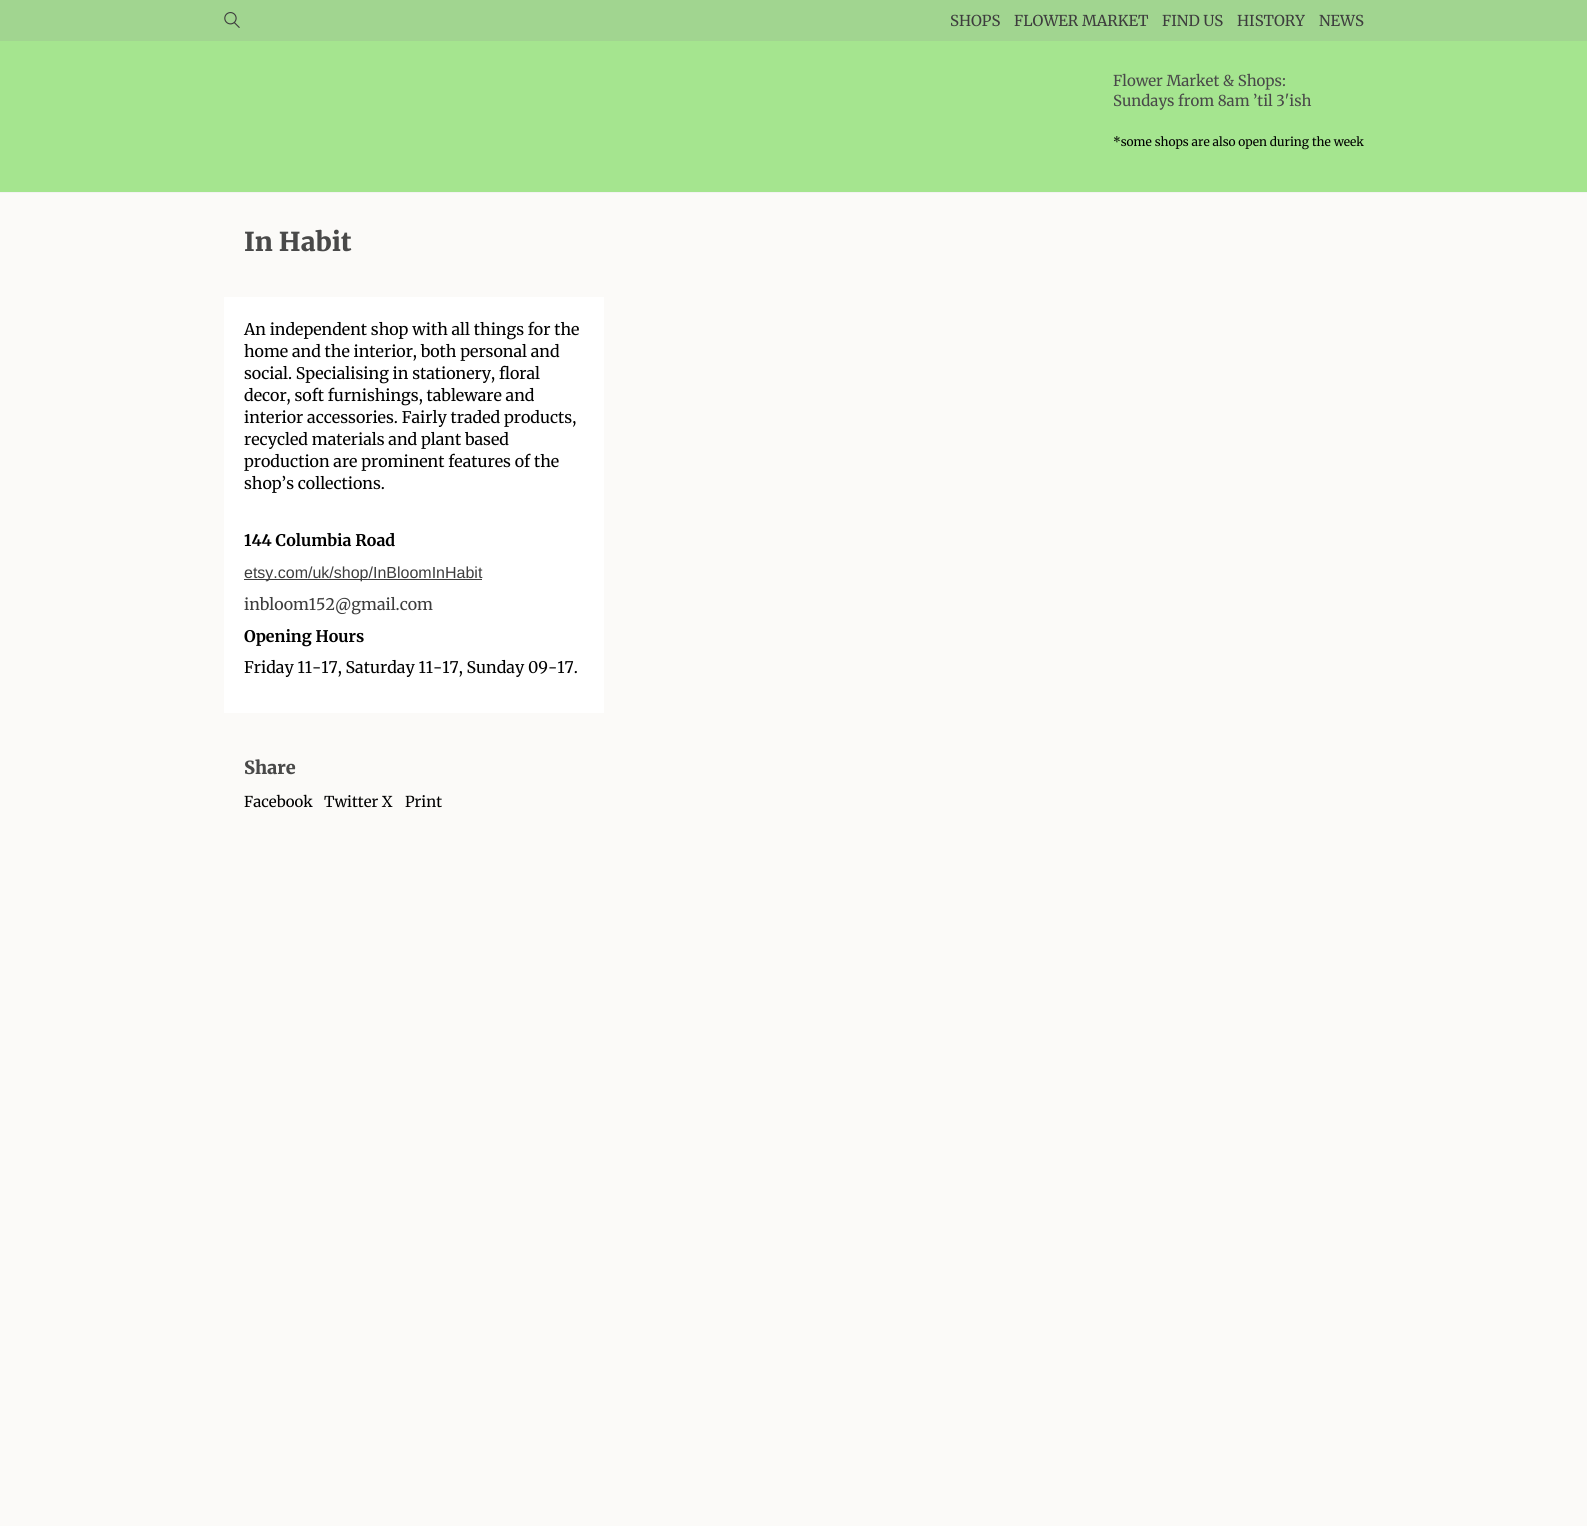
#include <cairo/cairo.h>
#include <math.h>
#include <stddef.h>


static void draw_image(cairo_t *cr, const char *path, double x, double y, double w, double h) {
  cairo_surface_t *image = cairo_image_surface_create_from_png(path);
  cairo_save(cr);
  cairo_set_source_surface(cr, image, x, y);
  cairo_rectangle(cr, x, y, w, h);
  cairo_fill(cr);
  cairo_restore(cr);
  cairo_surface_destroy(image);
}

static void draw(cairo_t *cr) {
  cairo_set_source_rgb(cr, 251 / 255.0, 250 / 255.0, 248 / 255.0);
  cairo_paint(cr);
  cairo_set_source_rgb(cr, 161 / 255.0, 213 / 255.0, 144 / 255.0);
  cairo_rectangle(cr, 0, 0, 1587, 41);
  cairo_fill(cr);
  draw_image(cr, "images/1.png", 224, 12, 16, 16);
  cairo_set_source_rgb(cr, 165 / 255.0, 229 / 255.0, 143 / 255.0);
  cairo_rectangle(cr, 0, 41, 1587, 151);
  cairo_fill(cr);
  cairo_set_source_rgb(cr, 243 / 255.0, 243 / 255.0, 243 / 255.0);
  cairo_rectangle(cr, 0, 192, 1587, 1);
  cairo_fill(cr);
  cairo_set_source_rgb(cr, 1, 1, 1);
  cairo_rectangle(cr, 224, 297, 380, 416);
  cairo_fill(cr);
  cairo_set_source_rgb(cr, 61 / 255.0, 61 / 255.0, 61 / 255.0);
  cairo_rectangle(cr, 244, 579, 238, 1);
  cairo_fill(cr);
  cairo_select_font_face(cr, "Merriweather", CAIRO_FONT_SLANT_NORMAL, CAIRO_FONT_WEIGHT_NORMAL);
  cairo_set_font_size(cr, 15);
  cairo_move_to(cr, 950, 26);
  cairo_show_text(cr, "SHOPS");
  cairo_move_to(cr, 1014, 26);
  cairo_show_text(cr, "FLOWER MARKET");
  cairo_move_to(cr, 1162, 26);
  cairo_show_text(cr, "FIND US");
  cairo_move_to(cr, 1237, 26);
  cairo_show_text(cr, "HISTORY");
  cairo_move_to(cr, 1319, 26);
  cairo_show_text(cr, "NEWS");
  cairo_set_source_rgb(cr, 73 / 255.0, 73 / 255.0, 73 / 255.0);
  cairo_move_to(cr, 1113, 86);
  cairo_show_text(cr, "Flower Market & Shops:");
  cairo_move_to(cr, 1113, 106);
  cairo_show_text(cr, "Sundays from 8am ’til 3'ish");
  cairo_set_font_size(cr, 12);
  cairo_set_source_rgb(cr, 0, 0, 0);
  cairo_move_to(cr, 1113, 146);
  cairo_show_text(cr, "*some shops are also open during the week");
  cairo_select_font_face(cr, "Merriweather Black", CAIRO_FONT_SLANT_NORMAL, CAIRO_FONT_WEIGHT_NORMAL);
  cairo_set_font_size(cr, 26);
  cairo_set_source_rgb(cr, 73 / 255.0, 73 / 255.0, 73 / 255.0);
  cairo_move_to(cr, 244, 251);
  cairo_show_text(cr, "In Habit");
  cairo_select_font_face(cr, "Merriweather", CAIRO_FONT_SLANT_NORMAL, CAIRO_FONT_WEIGHT_NORMAL);
  cairo_set_font_size(cr, 16);
  cairo_set_source_rgb(cr, 0, 0, 0);
  cairo_move_to(cr, 244, 335);
  cairo_show_text(cr, "An independent shop with all things for the");
  cairo_move_to(cr, 244, 357);
  cairo_show_text(cr, "home and the interior, both personal and");
  cairo_move_to(cr, 244, 379);
  cairo_show_text(cr, "social. Specialising in stationery, floral");
  cairo_move_to(cr, 244, 401);
  cairo_show_text(cr, "decor, soft furnishings, tableware and");
  cairo_move_to(cr, 244, 423);
  cairo_show_text(cr, "interior accessories. Fairly traded products,");
  cairo_move_to(cr, 244, 445);
  cairo_show_text(cr, "recycled materials and plant based");
  cairo_move_to(cr, 244, 467);
  cairo_show_text(cr, "production are prominent features of the");
  cairo_move_to(cr, 244, 489);
  cairo_show_text(cr, "shop’s collections.");
  cairo_select_font_face(cr, "Merriweather", CAIRO_FONT_SLANT_NORMAL, CAIRO_FONT_WEIGHT_BOLD);
  cairo_move_to(cr, 244, 546);
  cairo_show_text(cr, "144 Columbia Road");
  cairo_select_font_face(cr, "Liberation Sans", CAIRO_FONT_SLANT_NORMAL, CAIRO_FONT_WEIGHT_NORMAL);
  cairo_set_source_rgb(cr, 61 / 255.0, 61 / 255.0, 61 / 255.0);
  cairo_move_to(cr, 244, 578);
  cairo_show_text(cr, "etsy.com/uk/shop/InBloomInHabit");
  cairo_select_font_face(cr, "Merriweather", CAIRO_FONT_SLANT_NORMAL, CAIRO_FONT_WEIGHT_NORMAL);
  cairo_move_to(cr, 244, 610);
  cairo_show_text(cr, "inbloom152@gmail.com");
  cairo_select_font_face(cr, "Merriweather", CAIRO_FONT_SLANT_NORMAL, CAIRO_FONT_WEIGHT_BOLD);
  cairo_set_source_rgb(cr, 0, 0, 0);
  cairo_move_to(cr, 244, 642);
  cairo_show_text(cr, "Opening Hours");
  cairo_select_font_face(cr, "Merriweather", CAIRO_FONT_SLANT_NORMAL, CAIRO_FONT_WEIGHT_NORMAL);
  cairo_move_to(cr, 244, 673);
  cairo_show_text(cr, "Friday 11-17, Saturday 11-17, Sunday 09-17.");
  cairo_select_font_face(cr, "Merriweather Black", CAIRO_FONT_SLANT_NORMAL, CAIRO_FONT_WEIGHT_NORMAL);
  cairo_set_font_size(cr, 18);
  cairo_set_source_rgb(cr, 73 / 255.0, 73 / 255.0, 73 / 255.0);
  cairo_move_to(cr, 244, 774);
  cairo_show_text(cr, "Share");
  cairo_select_font_face(cr, "Merriweather", CAIRO_FONT_SLANT_NORMAL, CAIRO_FONT_WEIGHT_NORMAL);
  cairo_set_font_size(cr, 15);
  cairo_set_source_rgb(cr, 0, 0, 0);
  cairo_move_to(cr, 244, 807);
  cairo_show_text(cr, "Facebook");
  cairo_move_to(cr, 324, 807);
  cairo_show_text(cr, "Twitter X");
  cairo_move_to(cr, 405, 807);
  cairo_show_text(cr, "Print");
}

int main(void) {
  cairo_surface_t *surface = cairo_image_surface_create(CAIRO_FORMAT_RGB24, 1587, 1526);
  cairo_t *cr = cairo_create(surface);
  cairo_font_options_t *options = cairo_font_options_create();
  cairo_font_options_set_hint_metrics(options, CAIRO_HINT_METRICS_OFF);
  cairo_font_options_set_hint_style(options, CAIRO_HINT_STYLE_NONE);
  cairo_set_font_options(cr, options);
  cairo_set_miter_limit(cr, 4);
  draw(cr);
  cairo_surface_write_to_png(surface, "out.png");
  cairo_font_options_destroy(options);
  cairo_destroy(cr);
  cairo_surface_destroy(surface);
  return 0;
}
